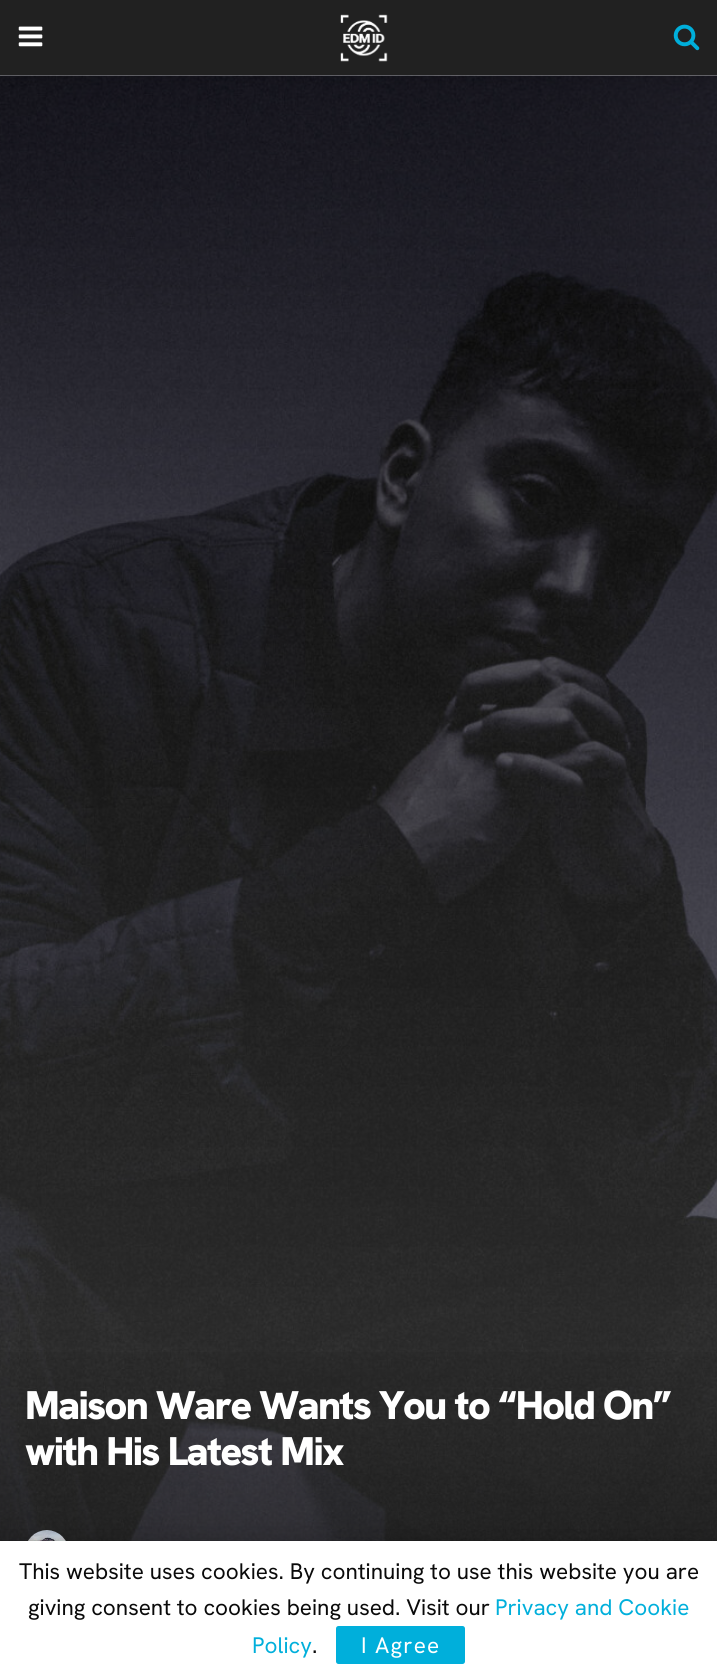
#include <cairo/cairo.h>
#include <math.h>
#include <stddef.h>


static void draw_spaced(cairo_t *cr, double x, double y, const char *s, double letter, double word) {
  cairo_move_to(cr, x, y);
  while (*s) {
    char ch[5] = {0};
    int n = 0;
    do ch[n++] = *s++; while ((*s & 0xC0) == 0x80);
    cairo_show_text(cr, ch);
    cairo_rel_move_to(cr, letter + word * (*ch == ' '), 0);
  }
}

static void rounded_rect(cairo_t *cr, double x, double y, double w, double h, double r) {
  cairo_new_sub_path(cr);
  cairo_arc(cr, x + w - r, y + h - r, r, 0, M_PI / 2);
  cairo_arc(cr, x + r, y + h - r, r, M_PI / 2, M_PI);
  cairo_arc(cr, x + r, y + r, r, M_PI, 1.5 * M_PI);
  cairo_arc(cr, x + w - r, y + r, r, 1.5 * M_PI, 2 * M_PI);
  cairo_close_path(cr);
}

static void draw_shadow(cairo_t *cr, double x, double y, double w, double h, double r, double blur, double alpha) {
  cairo_push_group_with_content(cr, CAIRO_CONTENT_ALPHA);
  cairo_set_operator(cr, CAIRO_OPERATOR_SOURCE);
  for (int i = 15; i >= -15 && fmin(w, h) + blur * i / 3 > 0; i -= 2) {
    double e = blur * i / 6;
    cairo_set_source_rgba(cr, 0, 0, 0, alpha * erfc((i - 1) / 8.5) / 2);
    rounded_rect(cr, x - e, y - e, w + 2 * e, h + 2 * e, fmax(0, fmin(r + e + blur * .6, fmin(w, h) / 2 + e)));
    cairo_fill(cr);
  }
  cairo_pattern_t *soft = cairo_pop_group(cr);
  cairo_mask(cr, soft);
  cairo_pattern_destroy(soft);
}

static void draw_image(cairo_t *cr, const char *path, double x, double y, double w, double h) {
  cairo_surface_t *image = cairo_image_surface_create_from_png(path);
  cairo_save(cr);
  cairo_set_source_surface(cr, image, x, y);
  cairo_rectangle(cr, x, y, w, h);
  cairo_fill(cr);
  cairo_restore(cr);
  cairo_surface_destroy(image);
}

static void draw(cairo_t *cr) {
  cairo_pattern_t *gradient;
  cairo_set_source_rgb(cr, 1, 1, 1);
  cairo_paint(cr);
  gradient = cairo_pattern_create_linear(359, 0, 359, 1676);
  cairo_pattern_add_color_stop_rgba(gradient, 0, 0, 0, 0, 1);
  cairo_pattern_add_color_stop_rgba(gradient, 1, 84 / 255.0, 84 / 255.0, 84 / 255.0, 1);
  cairo_set_source(cr, gradient);
  cairo_pattern_destroy(gradient);
  cairo_rectangle(cr, 0, 75, 717, 1466);
  cairo_fill(cr);
  draw_image(cr, "images/4.png", 0, 75, 717, 1466);
  cairo_set_source_rgb(cr, 0, 0, 0);
  draw_shadow(cr, 0, 3, 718, 76, 0, 4, 0.1);
  cairo_set_source_rgba(cr, 1, 1, 1, 0.2);
  cairo_rectangle(cr, 0, 75, 717, 1);
  cairo_fill(cr);
  cairo_set_source_rgba(cr, 1, 1, 1, 0.15);
  cairo_rectangle(cr, 0, 75, 717, 1);
  cairo_fill(cr);
  cairo_set_source_rgb(cr, 33 / 255.0, 33 / 255.0, 33 / 255.0);
  cairo_rectangle(cr, 0, 0, 717, 75);
  cairo_fill(cr);
  draw_image(cr, "images/1.png", 18, 26, 25, 21);
  draw_image(cr, "images/2.png", 340, 14, 48, 48);
  draw_image(cr, "images/3.png", 673, 24, 27, 27);
  gradient = cairo_pattern_create_linear(359, 1320, 359, 1676);
  cairo_pattern_add_color_stop_rgba(gradient, 0, 0, 0, 0, 0);
  cairo_pattern_add_color_stop_rgba(gradient, 1, 0, 0, 0, 0.55);
  cairo_set_source(cr, gradient);
  cairo_pattern_destroy(gradient);
  cairo_rectangle(cr, 0, 1352, 717, 189);
  cairo_fill(cr);
  draw_image(cr, "images/5.png", 28, 1530, 38, 11);
  cairo_set_source_rgb(cr, 0, 0, 0);
  draw_shadow(cr, 0, 1544, 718, 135, 0, 12.5, 0.15);
  draw_shadow(cr, 0, 1541, 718, 135, 0, 0.5, 0.2);
  cairo_set_source_rgb(cr, 1, 1, 1);
  cairo_rectangle(cr, 0, 1541, 717, 135);
  cairo_fill(cr);
  cairo_set_source_rgb(cr, 0, 175 / 255.0, 219 / 255.0);
  rounded_rect(cr, 336, 1626, 129, 38, 2.5);
  cairo_fill(cr);
  cairo_select_font_face(cr, "Hanken Grotesk Black", CAIRO_FONT_SLANT_NORMAL, CAIRO_FONT_WEIGHT_NORMAL);
  cairo_set_font_size(cr, 40);
  cairo_set_source_rgb(cr, 1, 1, 1);
  draw_spaced(cr, 25, 1419, "Maison Ware Wants You to “Hold On”", -1.6, 0);
  draw_spaced(cr, 25, 1465, "with His Latest Mix", -1.6, 0);
  cairo_select_font_face(cr, "Hanken Grotesk", CAIRO_FONT_SLANT_NORMAL, CAIRO_FONT_WEIGHT_NORMAL);
  cairo_set_font_size(cr, 22.5);
  cairo_set_source_rgb(cr, 10 / 255.0, 10 / 255.0, 10 / 255.0);
  cairo_move_to(cr, 19, 1579);
  cairo_show_text(cr, "This website uses cookies. By continuing to use this website you are");
  cairo_move_to(cr, 28, 1615);
  cairo_show_text(cr, "giving consent to cookies being used. Visit our");
  cairo_set_source_rgb(cr, 0, 175 / 255.0, 219 / 255.0);
  cairo_move_to(cr, 495, 1615);
  cairo_show_text(cr, "Privacy and Cookie");
  cairo_move_to(cr, 252, 1653);
  cairo_show_text(cr, "Policy");
  cairo_set_source_rgb(cr, 10 / 255.0, 10 / 255.0, 10 / 255.0);
  cairo_move_to(cr, 312, 1653);
  cairo_show_text(cr, ".");
  cairo_set_source_rgb(cr, 1, 1, 1);
  draw_spaced(cr, 361, 1653, "I Agree", 1.25, 0);
}

int main(void) {
  cairo_surface_t *surface = cairo_image_surface_create(CAIRO_FORMAT_RGB24, 717, 1676);
  cairo_t *cr = cairo_create(surface);
  cairo_font_options_t *options = cairo_font_options_create();
  cairo_font_options_set_hint_metrics(options, CAIRO_HINT_METRICS_OFF);
  cairo_font_options_set_hint_style(options, CAIRO_HINT_STYLE_NONE);
  cairo_set_font_options(cr, options);
  cairo_set_miter_limit(cr, 4);
  draw(cr);
  cairo_surface_write_to_png(surface, "out.png");
  cairo_font_options_destroy(options);
  cairo_destroy(cr);
  cairo_surface_destroy(surface);
  return 0;
}
